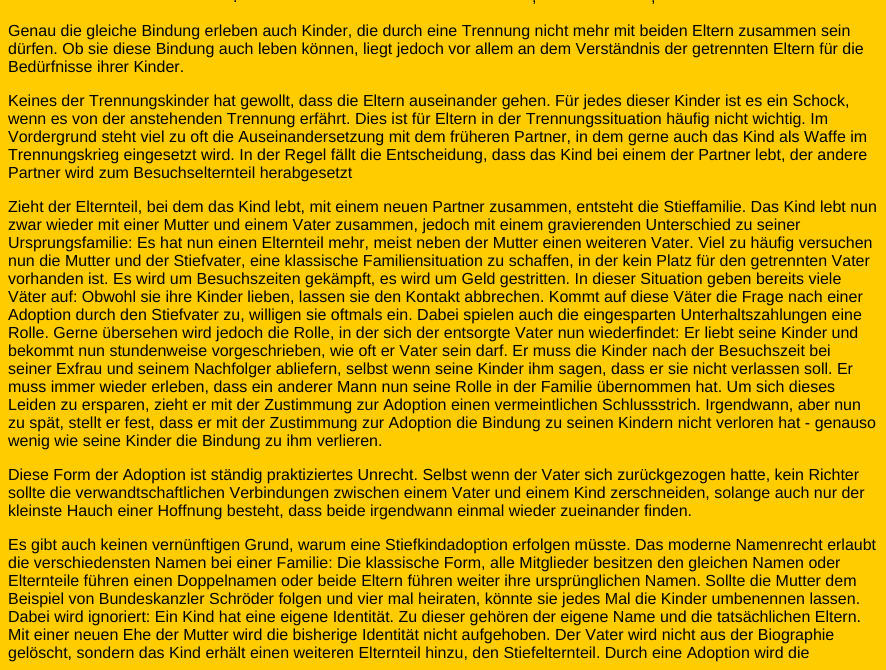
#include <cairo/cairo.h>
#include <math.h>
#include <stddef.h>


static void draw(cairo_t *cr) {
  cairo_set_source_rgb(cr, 1, 204 / 255.0, 0);
  cairo_paint(cr);
  cairo_select_font_face(cr, "Liberation Sans", CAIRO_FONT_SLANT_NORMAL, CAIRO_FONT_WEIGHT_NORMAL);
  cairo_set_font_size(cr, 16);
  cairo_set_source_rgb(cr, 0, 0, 0);
  cairo_move_to(cr, 233, 2);
  cairo_show_text(cr, ".");
  cairo_move_to(cr, 532, 2);
  cairo_show_text(cr, ",");
  cairo_move_to(cr, 651, 2);
  cairo_show_text(cr, ",");
  cairo_move_to(cr, 8, 36);
  cairo_show_text(cr, "Genau die gleiche Bindung erleben auch Kinder, die durch eine Trennung nicht mehr mit beiden Eltern zusammen sein");
  cairo_move_to(cr, 8, 54);
  cairo_show_text(cr, "dürfen. Ob sie diese Bindung auch leben können, liegt jedoch vor allem an dem Verständnis der getrennten Eltern für die");
  cairo_move_to(cr, 8, 72);
  cairo_show_text(cr, "Bedürfnisse ihrer Kinder.");
  cairo_move_to(cr, 8, 106);
  cairo_show_text(cr, "Keines der Trennungskinder hat gewollt, dass die Eltern auseinander gehen. Für jedes dieser Kinder ist es ein Schock,");
  cairo_move_to(cr, 8, 124);
  cairo_show_text(cr, "wenn es von der anstehenden Trennung erfährt. Dies ist für Eltern in der Trennungssituation häufig nicht wichtig. Im");
  cairo_move_to(cr, 8, 142);
  cairo_show_text(cr, "Vordergrund steht viel zu oft die Auseinandersetzung mit dem früheren Partner, in dem gerne auch das Kind als Waffe im");
  cairo_move_to(cr, 8, 160);
  cairo_show_text(cr, "Trennungskrieg eingesetzt wird. In der Regel fällt die Entscheidung, dass das Kind bei einem der Partner lebt, der andere");
  cairo_move_to(cr, 8, 178);
  cairo_show_text(cr, "Partner wird zum Besuchselternteil herabgesetzt");
  cairo_move_to(cr, 8, 212);
  cairo_show_text(cr, "Zieht der Elternteil, bei dem das Kind lebt, mit einem neuen Partner zusammen, entsteht die Stieffamilie. Das Kind lebt nun");
  cairo_move_to(cr, 8, 230);
  cairo_show_text(cr, "zwar wieder mit einer Mutter und einem Vater zusammen, jedoch mit einem gravierenden Unterschied zu seiner");
  cairo_move_to(cr, 8, 248);
  cairo_show_text(cr, "Ursprungsfamilie: Es hat nun einen Elternteil mehr, meist neben der Mutter einen weiteren Vater. Viel zu häufig versuchen");
  cairo_move_to(cr, 8, 266);
  cairo_show_text(cr, "nun die Mutter und der Stiefvater, eine klassische Familiensituation zu schaffen, in der kein Platz für den getrennten Vater");
  cairo_move_to(cr, 8, 284);
  cairo_show_text(cr, "vorhanden ist. Es wird um Besuchszeiten gekämpft, es wird um Geld gestritten. In dieser Situation geben bereits viele");
  cairo_move_to(cr, 8, 302);
  cairo_show_text(cr, "Väter auf: Obwohl sie ihre Kinder lieben, lassen sie den Kontakt abbrechen. Kommt auf diese Väter die Frage nach einer");
  cairo_move_to(cr, 8, 320);
  cairo_show_text(cr, "Adoption durch den Stiefvater zu, willigen sie oftmals ein. Dabei spielen auch die eingesparten Unterhaltszahlungen eine");
  cairo_move_to(cr, 8, 338);
  cairo_show_text(cr, "Rolle. Gerne übersehen wird jedoch die Rolle, in der sich der entsorgte Vater nun wiederfindet: Er liebt seine Kinder und");
  cairo_move_to(cr, 8, 356);
  cairo_show_text(cr, "bekommt nun stundenweise vorgeschrieben, wie oft er Vater sein darf. Er muss die Kinder nach der Besuchszeit bei");
  cairo_move_to(cr, 8, 374);
  cairo_show_text(cr, "seiner Exfrau und seinem Nachfolger abliefern, selbst wenn seine Kinder ihm sagen, dass er sie nicht verlassen soll. Er");
  cairo_move_to(cr, 8, 392);
  cairo_show_text(cr, "muss immer wieder erleben, dass ein anderer Mann nun seine Rolle in der Familie übernommen hat. Um sich dieses");
  cairo_move_to(cr, 8, 410);
  cairo_show_text(cr, "Leiden zu ersparen, zieht er mit der Zustimmung zur Adoption einen vermeintlichen Schlussstrich. Irgendwann, aber nun");
  cairo_move_to(cr, 8, 428);
  cairo_show_text(cr, "zu spät, stellt er fest, dass er mit der Zustimmung zur Adoption die Bindung zu seinen Kindern nicht verloren hat - genauso");
  cairo_move_to(cr, 8, 446);
  cairo_show_text(cr, "wenig wie seine Kinder die Bindung zu ihm verlieren.");
  cairo_move_to(cr, 8, 480);
  cairo_show_text(cr, "Diese Form der Adoption ist ständig praktiziertes Unrecht. Selbst wenn der Vater sich zurückgezogen hatte, kein Richter");
  cairo_move_to(cr, 8, 498);
  cairo_show_text(cr, "sollte die verwandtschaftlichen Verbindungen zwischen einem Vater und einem Kind zerschneiden, solange auch nur der");
  cairo_move_to(cr, 8, 516);
  cairo_show_text(cr, "kleinste Hauch einer Hoffnung besteht, dass beide irgendwann einmal wieder zueinander finden.");
  cairo_move_to(cr, 8, 550);
  cairo_show_text(cr, "Es gibt auch keinen vernünftigen Grund, warum eine Stiefkindadoption erfolgen müsste. Das moderne Namenrecht erlaubt");
  cairo_move_to(cr, 8, 568);
  cairo_show_text(cr, "die verschiedensten Namen bei einer Familie: Die klassische Form, alle Mitglieder besitzen den gleichen Namen oder");
  cairo_move_to(cr, 8, 586);
  cairo_show_text(cr, "Elternteile führen einen Doppelnamen oder beide Eltern führen weiter ihre ursprünglichen Namen. Sollte die Mutter dem");
  cairo_move_to(cr, 8, 604);
  cairo_show_text(cr, "Beispiel von Bundeskanzler Schröder folgen und vier mal heiraten, könnte sie jedes Mal die Kinder umbenennen lassen.");
  cairo_move_to(cr, 8, 622);
  cairo_show_text(cr, "Dabei wird ignoriert: Ein Kind hat eine eigene Identität. Zu dieser gehören der eigene Name und die tatsächlichen Eltern.");
  cairo_move_to(cr, 8, 640);
  cairo_show_text(cr, "Mit einer neuen Ehe der Mutter wird die bisherige Identität nicht aufgehoben. Der Vater wird nicht aus der Biographie");
  cairo_move_to(cr, 8, 658);
  cairo_show_text(cr, "gelöscht, sondern das Kind erhält einen weiteren Elternteil hinzu, den Stiefelternteil. Durch eine Adoption wird die");
}

int main(void) {
  cairo_surface_t *surface = cairo_image_surface_create(CAIRO_FORMAT_RGB24, 886, 670);
  cairo_t *cr = cairo_create(surface);
  cairo_font_options_t *options = cairo_font_options_create();
  cairo_font_options_set_hint_metrics(options, CAIRO_HINT_METRICS_OFF);
  cairo_font_options_set_hint_style(options, CAIRO_HINT_STYLE_NONE);
  cairo_set_font_options(cr, options);
  cairo_set_miter_limit(cr, 4);
  draw(cr);
  cairo_surface_write_to_png(surface, "out.png");
  cairo_font_options_destroy(options);
  cairo_destroy(cr);
  cairo_surface_destroy(surface);
  return 0;
}
